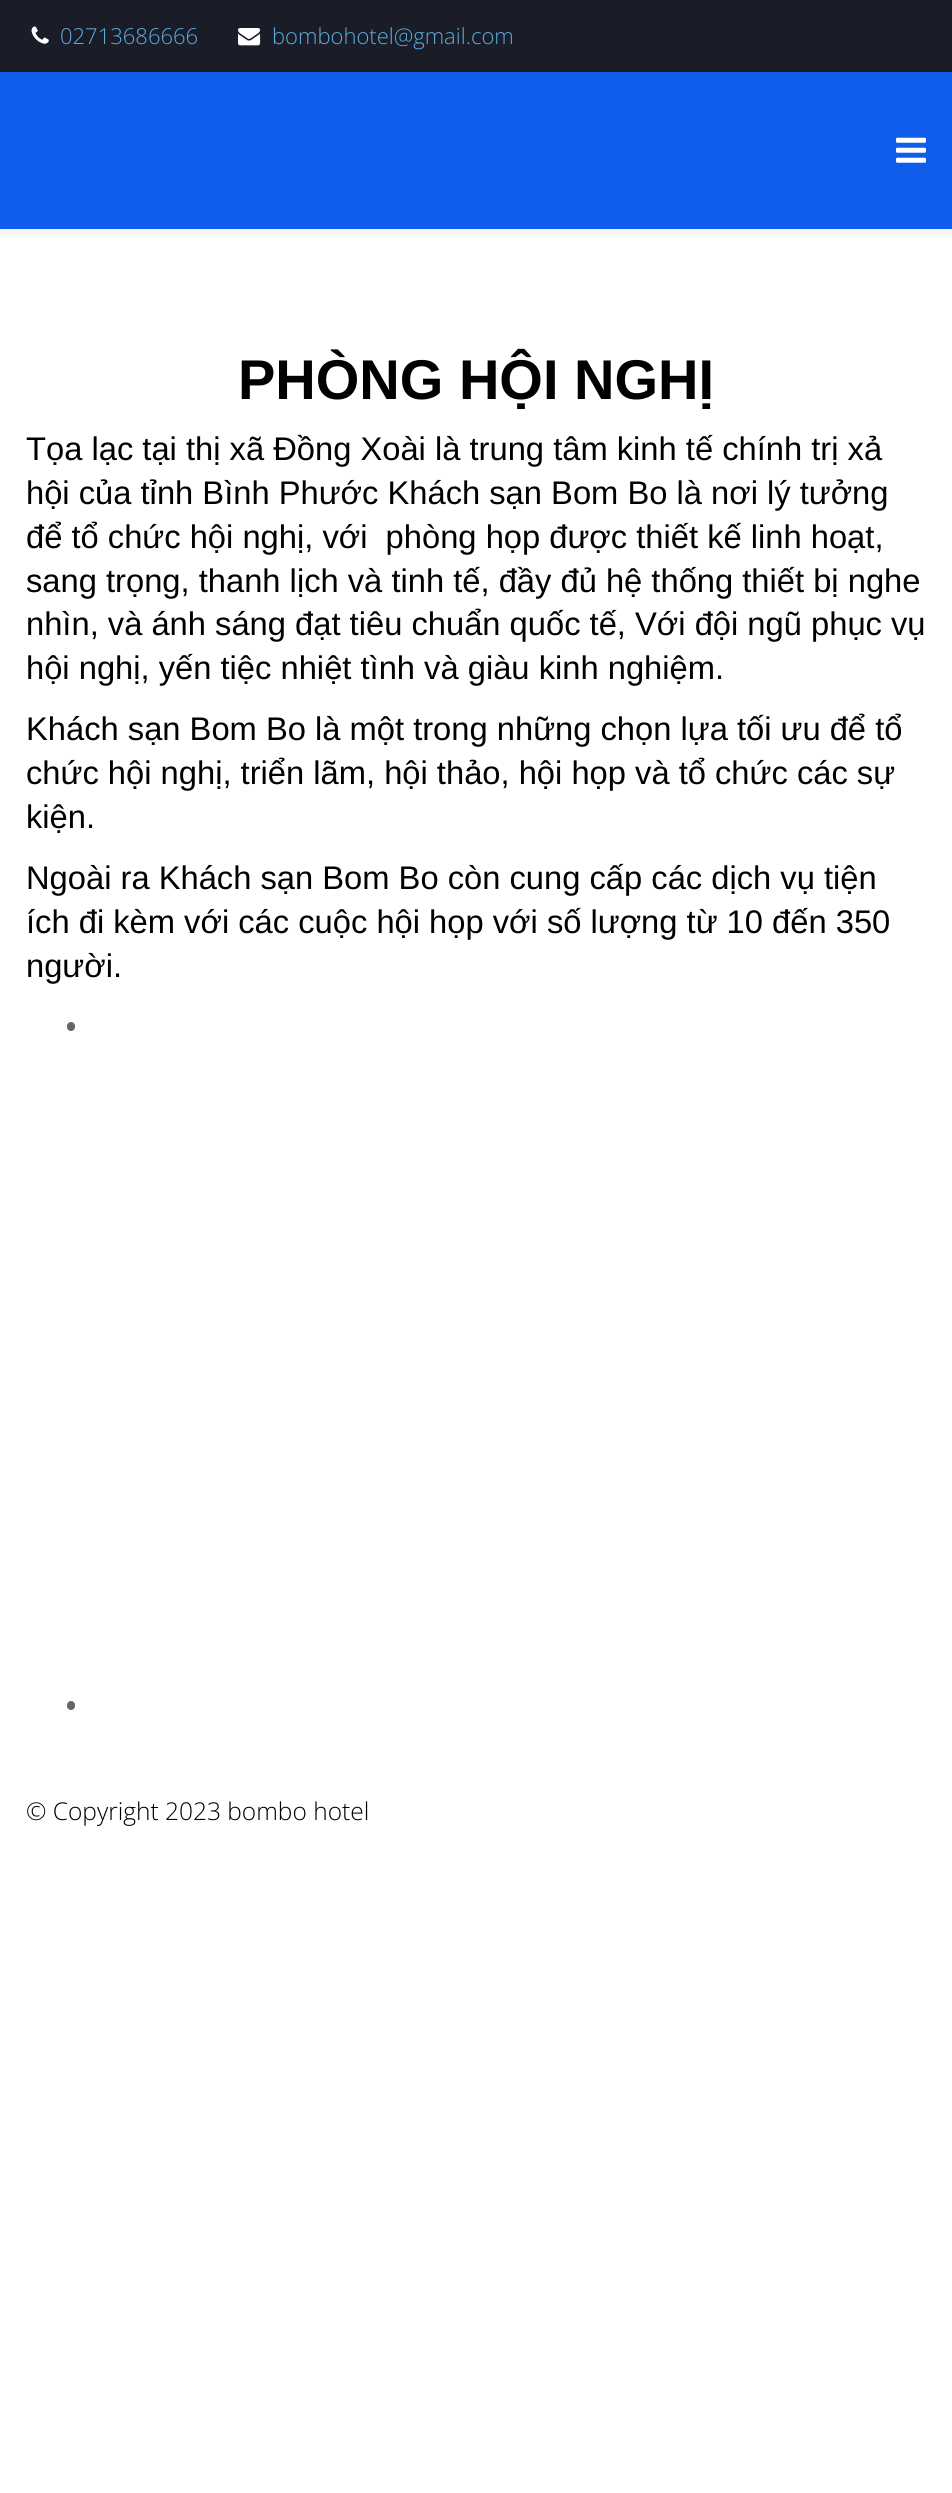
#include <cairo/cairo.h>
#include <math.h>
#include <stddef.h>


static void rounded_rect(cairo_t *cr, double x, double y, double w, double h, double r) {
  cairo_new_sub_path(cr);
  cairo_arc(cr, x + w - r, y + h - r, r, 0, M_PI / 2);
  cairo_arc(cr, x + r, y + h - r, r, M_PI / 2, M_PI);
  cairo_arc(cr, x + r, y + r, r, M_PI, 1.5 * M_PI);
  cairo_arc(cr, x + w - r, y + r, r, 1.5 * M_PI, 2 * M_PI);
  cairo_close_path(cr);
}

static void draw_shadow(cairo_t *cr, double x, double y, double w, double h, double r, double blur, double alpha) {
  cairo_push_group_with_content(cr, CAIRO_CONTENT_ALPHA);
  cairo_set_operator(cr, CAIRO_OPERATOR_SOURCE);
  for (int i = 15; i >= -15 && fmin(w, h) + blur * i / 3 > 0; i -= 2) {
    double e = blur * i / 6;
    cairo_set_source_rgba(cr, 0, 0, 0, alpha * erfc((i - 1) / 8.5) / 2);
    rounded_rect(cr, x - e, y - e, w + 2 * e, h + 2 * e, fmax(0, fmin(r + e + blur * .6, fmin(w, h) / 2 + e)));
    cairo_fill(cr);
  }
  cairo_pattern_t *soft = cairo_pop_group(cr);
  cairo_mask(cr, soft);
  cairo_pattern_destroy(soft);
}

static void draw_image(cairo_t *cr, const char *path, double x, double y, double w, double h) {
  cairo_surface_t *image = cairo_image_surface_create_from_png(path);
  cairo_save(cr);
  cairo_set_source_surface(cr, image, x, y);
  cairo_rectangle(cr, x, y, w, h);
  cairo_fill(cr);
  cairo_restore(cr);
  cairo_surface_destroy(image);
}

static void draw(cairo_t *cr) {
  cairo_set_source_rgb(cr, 1, 1, 1);
  cairo_paint(cr);
  cairo_set_source_rgb(cr, 26 / 255.0, 28 / 255.0, 39 / 255.0);
  cairo_rectangle(cr, 0, 0, 952, 72);
  cairo_fill(cr);
  draw_image(cr, "images/1.png", 31, 26, 18, 18);
  draw_image(cr, "images/2.png", 238, 28, 23, 18);
  cairo_set_source_rgb(cr, 0, 0, 0);
  draw_shadow(cr, 0, 77, 952, 158, 0, 2.5, 0.05);
  cairo_set_source_rgb(cr, 17 / 255.0, 93 / 255.0, 235 / 255.0);
  cairo_rectangle(cr, 0, 72, 952, 157);
  cairo_fill(cr);
  draw_image(cr, "images/3.png", 896, 137, 30, 26);
  cairo_set_source_rgb(cr, 102 / 255.0, 102 / 255.0, 102 / 255.0);
  rounded_rect(cr, 67, 1022, 8, 9, 4);
  cairo_fill(cr);
  rounded_rect(cr, 67, 1701, 8, 9, 4);
  cairo_fill(cr);
  cairo_select_font_face(cr, "Open Sans Light", CAIRO_FONT_SLANT_NORMAL, CAIRO_FONT_WEIGHT_NORMAL);
  cairo_set_font_size(cr, 22);
  cairo_set_source_rgb(cr, 90 / 255.0, 173 / 255.0, 221 / 255.0);
  cairo_move_to(cr, 60, 44);
  cairo_show_text(cr, "02713686666");
  cairo_move_to(cr, 272, 44);
  cairo_show_text(cr, "bombohotel@gmail.com");
  cairo_select_font_face(cr, "Liberation Sans", CAIRO_FONT_SLANT_NORMAL, CAIRO_FONT_WEIGHT_BOLD);
  cairo_set_font_size(cr, 56);
  cairo_set_source_rgb(cr, 0, 0, 0);
  cairo_move_to(cr, 238, 399);
  cairo_show_text(cr, "PHÒNG HỘI NGHỊ");
  cairo_select_font_face(cr, "Liberation Sans", CAIRO_FONT_SLANT_NORMAL, CAIRO_FONT_WEIGHT_NORMAL);
  cairo_set_font_size(cr, 32.7);
  cairo_move_to(cr, 26, 460);
  cairo_show_text(cr, "Tọa lạc tại thị xã Đồng Xoài là trung tâm kinh tế chính trị xả");
  cairo_move_to(cr, 26, 504);
  cairo_show_text(cr, "hội của tỉnh Bình Phước Khách sạn Bom Bo là nơi lý tưởng");
  cairo_move_to(cr, 26, 548);
  cairo_show_text(cr, "để tổ chức hội nghị, với  phòng họp được thiết kế linh hoạt,");
  cairo_move_to(cr, 26, 592);
  cairo_show_text(cr, "sang trọng, thanh lịch và tinh tế, đầy đủ hệ thống thiết bị nghe");
  cairo_move_to(cr, 26, 635);
  cairo_show_text(cr, "nhìn, và ánh sáng đạt tiêu chuẩn quốc tế, Với đội ngũ phục vụ");
  cairo_move_to(cr, 26, 679);
  cairo_show_text(cr, "hội nghị, yến tiệc nhiệt tình và giàu kinh nghiệm.");
  cairo_move_to(cr, 26, 740);
  cairo_show_text(cr, "Khách sạn Bom Bo là một trong những chọn lựa tối ưu để tổ");
  cairo_move_to(cr, 26, 784);
  cairo_show_text(cr, "chức hội nghị, triển lãm, hội thảo, hội họp và tổ chức các sự");
  cairo_move_to(cr, 26, 828);
  cairo_show_text(cr, "kiện.");
  cairo_move_to(cr, 26, 889);
  cairo_show_text(cr, "Ngoài ra Khách sạn Bom Bo còn cung cấp các dịch vụ tiện");
  cairo_move_to(cr, 26, 933);
  cairo_show_text(cr, "ích đi kèm với các cuộc hội họp với số lượng từ 10 đến 350");
  cairo_move_to(cr, 26, 977);
  cairo_show_text(cr, "người.");
  cairo_select_font_face(cr, "Open Sans Light", CAIRO_FONT_SLANT_NORMAL, CAIRO_FONT_WEIGHT_NORMAL);
  cairo_set_font_size(cr, 24.5);
  cairo_move_to(cr, 26, 1820);
  cairo_show_text(cr, "© Copyright 2023 bombo hotel");
}

int main(void) {
  cairo_surface_t *surface = cairo_image_surface_create(CAIRO_FORMAT_RGB24, 952, 2493);
  cairo_t *cr = cairo_create(surface);
  cairo_font_options_t *options = cairo_font_options_create();
  cairo_font_options_set_hint_metrics(options, CAIRO_HINT_METRICS_OFF);
  cairo_font_options_set_hint_style(options, CAIRO_HINT_STYLE_NONE);
  cairo_set_font_options(cr, options);
  cairo_set_miter_limit(cr, 4);
  draw(cr);
  cairo_surface_write_to_png(surface, "out.png");
  cairo_font_options_destroy(options);
  cairo_destroy(cr);
  cairo_surface_destroy(surface);
  return 0;
}
